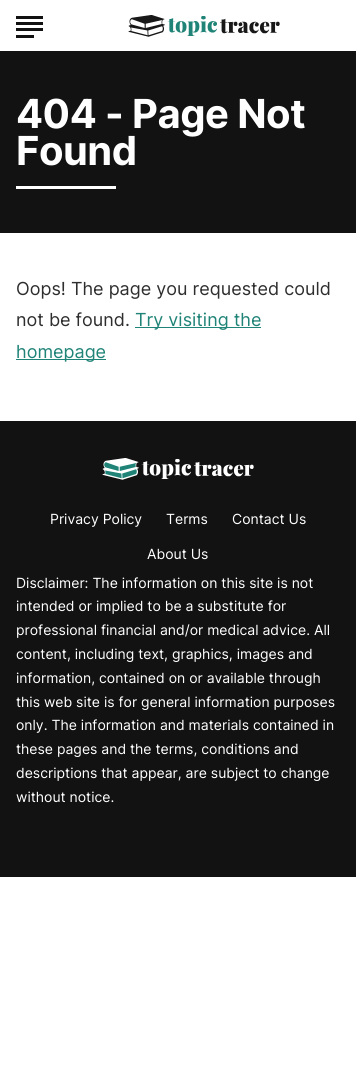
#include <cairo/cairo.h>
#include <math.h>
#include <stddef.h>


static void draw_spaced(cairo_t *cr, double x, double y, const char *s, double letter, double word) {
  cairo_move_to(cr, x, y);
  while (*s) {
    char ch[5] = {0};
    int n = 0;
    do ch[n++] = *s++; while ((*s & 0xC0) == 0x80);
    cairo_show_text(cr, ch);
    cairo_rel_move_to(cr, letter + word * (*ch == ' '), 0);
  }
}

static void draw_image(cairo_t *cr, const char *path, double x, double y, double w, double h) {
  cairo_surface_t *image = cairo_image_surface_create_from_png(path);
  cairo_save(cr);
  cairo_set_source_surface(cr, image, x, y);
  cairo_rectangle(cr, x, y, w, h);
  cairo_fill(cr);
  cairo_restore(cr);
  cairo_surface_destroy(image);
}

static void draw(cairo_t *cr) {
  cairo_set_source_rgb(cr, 1, 1, 1);
  cairo_paint(cr);
  cairo_set_source_rgb(cr, 18 / 255.0, 18 / 255.0, 18 / 255.0);
  cairo_rectangle(cr, 16, 22, 27, 3);
  cairo_fill(cr);
  cairo_rectangle(cr, 16, 16, 27, 3);
  cairo_fill(cr);
  cairo_rectangle(cr, 16, 28, 27, 3);
  cairo_fill(cr);
  cairo_rectangle(cr, 16, 35, 18, 3);
  cairo_fill(cr);
  draw_image(cr, "images/1.png", 128, 15, 152, 22);
  cairo_rectangle(cr, 0, 51, 356, 182);
  cairo_fill(cr);
  cairo_set_source_rgb(cr, 1, 1, 1);
  cairo_rectangle(cr, 16, 186, 100, 3);
  cairo_fill(cr);
  cairo_set_source_rgb(cr, 31 / 255.0, 131 / 255.0, 119 / 255.0);
  cairo_rectangle(cr, 135, 327, 126, 1);
  cairo_fill(cr);
  cairo_rectangle(cr, 16, 359, 90, 1);
  cairo_fill(cr);
  cairo_set_source_rgb(cr, 18 / 255.0, 18 / 255.0, 18 / 255.0);
  cairo_rectangle(cr, 0, 421, 356, 456);
  cairo_fill(cr);
  draw_image(cr, "images/2.png", 102, 458, 152, 22);
  cairo_select_font_face(cr, "Inter", CAIRO_FONT_SLANT_NORMAL, CAIRO_FONT_WEIGHT_BOLD);
  cairo_set_font_size(cr, 40);
  cairo_set_source_rgb(cr, 1, 1, 1);
  draw_spaced(cr, 16, 128, "404 - Page Not", -0.5, 0);
  draw_spaced(cr, 16, 165, "Found", -0.5, 0);
  cairo_select_font_face(cr, "Inter", CAIRO_FONT_SLANT_NORMAL, CAIRO_FONT_WEIGHT_NORMAL);
  cairo_set_font_size(cr, 18);
  cairo_set_source_rgb(cr, 46 / 255.0, 46 / 255.0, 46 / 255.0);
  cairo_move_to(cr, 16, 295);
  cairo_show_text(cr, "Oops! The page you requested could");
  cairo_move_to(cr, 16, 326);
  cairo_show_text(cr, "not be found.");
  cairo_set_source_rgb(cr, 31 / 255.0, 131 / 255.0, 119 / 255.0);
  cairo_move_to(cr, 135, 326);
  cairo_show_text(cr, "Try visiting the");
  cairo_move_to(cr, 16, 358);
  cairo_show_text(cr, "homepage");
  cairo_set_font_size(cr, 14);
  cairo_set_source_rgb(cr, 1, 1, 1);
  cairo_move_to(cr, 50, 524);
  cairo_show_text(cr, "Privacy Policy");
  cairo_move_to(cr, 166, 524);
  cairo_show_text(cr, "Terms");
  cairo_move_to(cr, 232, 524);
  cairo_show_text(cr, "Contact Us");
  cairo_move_to(cr, 147, 559);
  cairo_show_text(cr, "About Us");
  cairo_move_to(cr, 16, 588);
  cairo_show_text(cr, "Disclaimer: The information on this site is not");
  cairo_move_to(cr, 16, 611);
  cairo_show_text(cr, "intended or implied to be a substitute for");
  cairo_move_to(cr, 16, 635);
  cairo_show_text(cr, "professional financial and/or medical advice. All");
  cairo_move_to(cr, 16, 659);
  cairo_show_text(cr, "content, including text, graphics, images and");
  cairo_move_to(cr, 16, 683);
  cairo_show_text(cr, "information, contained on or available through");
  cairo_move_to(cr, 16, 707);
  cairo_show_text(cr, "this web site is for general information purposes");
  cairo_move_to(cr, 16, 730);
  cairo_show_text(cr, "only. The information and materials contained in");
  cairo_move_to(cr, 16, 754);
  cairo_show_text(cr, "these pages and the terms, conditions and");
  cairo_move_to(cr, 16, 778);
  cairo_show_text(cr, "descriptions that appear, are subject to change");
  cairo_move_to(cr, 16, 802);
  cairo_show_text(cr, "without notice.");
}

int main(void) {
  cairo_surface_t *surface = cairo_image_surface_create(CAIRO_FORMAT_RGB24, 356, 1088);
  cairo_t *cr = cairo_create(surface);
  cairo_font_options_t *options = cairo_font_options_create();
  cairo_font_options_set_hint_metrics(options, CAIRO_HINT_METRICS_OFF);
  cairo_font_options_set_hint_style(options, CAIRO_HINT_STYLE_NONE);
  cairo_set_font_options(cr, options);
  cairo_set_miter_limit(cr, 4);
  draw(cr);
  cairo_surface_write_to_png(surface, "out.png");
  cairo_font_options_destroy(options);
  cairo_destroy(cr);
  cairo_surface_destroy(surface);
  return 0;
}
